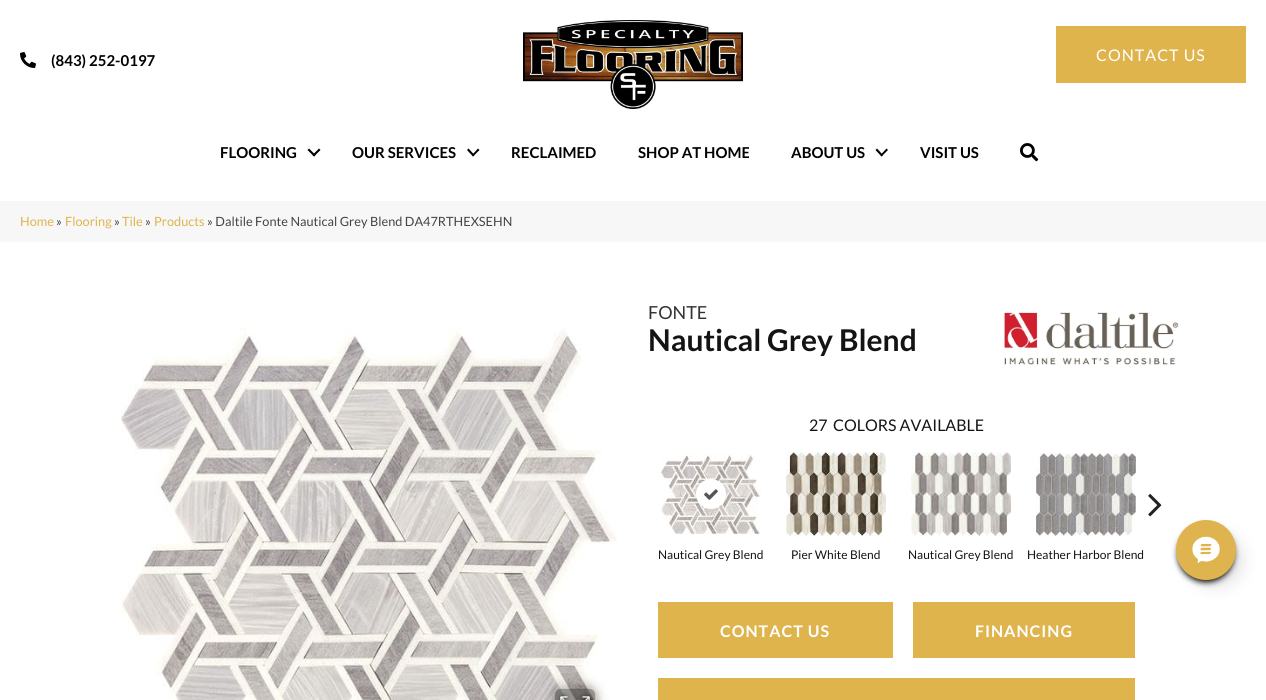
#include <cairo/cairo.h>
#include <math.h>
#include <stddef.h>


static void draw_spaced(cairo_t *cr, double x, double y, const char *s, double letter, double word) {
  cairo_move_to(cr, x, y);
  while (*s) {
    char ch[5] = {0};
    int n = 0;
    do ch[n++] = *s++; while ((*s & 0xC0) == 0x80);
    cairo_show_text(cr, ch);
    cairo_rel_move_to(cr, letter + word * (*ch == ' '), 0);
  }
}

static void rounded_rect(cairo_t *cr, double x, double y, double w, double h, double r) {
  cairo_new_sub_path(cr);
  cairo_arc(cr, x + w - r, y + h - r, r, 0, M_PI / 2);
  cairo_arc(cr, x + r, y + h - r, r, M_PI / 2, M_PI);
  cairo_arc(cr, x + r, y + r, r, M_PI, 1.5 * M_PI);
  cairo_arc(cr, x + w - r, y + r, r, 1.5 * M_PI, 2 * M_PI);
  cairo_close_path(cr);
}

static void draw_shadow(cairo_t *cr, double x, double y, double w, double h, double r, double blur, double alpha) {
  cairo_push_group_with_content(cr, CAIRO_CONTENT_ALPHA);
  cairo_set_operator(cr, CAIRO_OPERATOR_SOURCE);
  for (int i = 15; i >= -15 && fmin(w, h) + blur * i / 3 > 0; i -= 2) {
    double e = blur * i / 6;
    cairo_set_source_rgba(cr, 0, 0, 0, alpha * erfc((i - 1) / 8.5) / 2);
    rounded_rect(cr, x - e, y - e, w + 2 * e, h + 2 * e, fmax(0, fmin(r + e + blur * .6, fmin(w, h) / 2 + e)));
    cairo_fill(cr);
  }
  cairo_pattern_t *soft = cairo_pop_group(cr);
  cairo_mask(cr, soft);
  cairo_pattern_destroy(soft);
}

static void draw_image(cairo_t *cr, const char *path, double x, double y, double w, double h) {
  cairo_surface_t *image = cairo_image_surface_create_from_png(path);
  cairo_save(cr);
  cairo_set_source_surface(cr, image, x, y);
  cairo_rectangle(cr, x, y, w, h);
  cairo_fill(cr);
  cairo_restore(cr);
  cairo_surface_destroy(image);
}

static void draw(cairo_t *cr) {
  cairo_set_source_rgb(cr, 1, 1, 1);
  cairo_paint(cr);
  draw_image(cr, "images/1.png", 20, 52, 16, 16);
  draw_image(cr, "images/2.png", 523, 20, 220, 89);
  cairo_set_source_rgb(cr, 223 / 255.0, 180 / 255.0, 77 / 255.0);
  cairo_rectangle(cr, 1056, 26, 190, 57);
  cairo_fill(cr);
  cairo_set_source_rgb(cr, 0, 0, 0);
  cairo_new_path(cr);
  cairo_move_to(cr, 319, 148.5);
  cairo_line_to(cr, 320.5, 150);
  cairo_line_to(cr, 314, 156.5);
  cairo_line_to(cr, 312.5, 155);
  cairo_close_path(cr);
  cairo_fill(cr);
  cairo_new_path(cr);
  cairo_move_to(cr, 309, 148.5);
  cairo_line_to(cr, 315.5, 155);
  cairo_line_to(cr, 314, 156.5);
  cairo_line_to(cr, 307.5, 150);
  cairo_close_path(cr);
  cairo_fill(cr);
  cairo_new_path(cr);
  cairo_move_to(cr, 478, 148.5);
  cairo_line_to(cr, 479.5, 150);
  cairo_line_to(cr, 473, 156.5);
  cairo_line_to(cr, 472, 155);
  cairo_close_path(cr);
  cairo_fill(cr);
  cairo_new_path(cr);
  cairo_move_to(cr, 468.5, 148.5);
  cairo_line_to(cr, 474.5, 155);
  cairo_line_to(cr, 473, 156.5);
  cairo_line_to(cr, 467, 150);
  cairo_close_path(cr);
  cairo_fill(cr);
  cairo_new_path(cr);
  cairo_move_to(cr, 886.5, 148.5);
  cairo_line_to(cr, 888, 150);
  cairo_line_to(cr, 881.5, 156.5);
  cairo_line_to(cr, 880.5, 155);
  cairo_close_path(cr);
  cairo_fill(cr);
  cairo_new_path(cr);
  cairo_move_to(cr, 877, 148.5);
  cairo_line_to(cr, 883, 155);
  cairo_line_to(cr, 881.5, 156.5);
  cairo_line_to(cr, 875.5, 150);
  cairo_close_path(cr);
  cairo_fill(cr);
  draw_image(cr, "images/3.png", 1020, 143, 19, 19);
  cairo_set_source_rgb(cr, 247 / 255.0, 247 / 255.0, 247 / 255.0);
  cairo_rectangle(cr, 0, 201, 1266, 41);
  cairo_fill(cr);
  draw_image(cr, "images/4.png", 121, 328, 497, 372);
  cairo_save(cr);
  cairo_set_fill_rule(cr, CAIRO_FILL_RULE_EVEN_ODD);
  cairo_new_path(cr);
  cairo_move_to(cr, 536, 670);
  cairo_line_to(cr, 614, 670);
  cairo_line_to(cr, 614, 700);
  cairo_line_to(cr, 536, 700);
  cairo_close_path(cr);
  cairo_move_to(cr, 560, 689);
  cairo_line_to(cr, 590, 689);
  cairo_curve_to(cr, 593, 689, 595, 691, 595, 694);
  cairo_line_to(cr, 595, 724);
  cairo_curve_to(cr, 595, 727, 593, 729, 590, 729);
  cairo_line_to(cr, 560, 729);
  cairo_curve_to(cr, 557, 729, 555, 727, 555, 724);
  cairo_line_to(cr, 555, 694);
  cairo_curve_to(cr, 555, 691, 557, 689, 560, 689);
  cairo_close_path(cr);
  cairo_clip(cr);
  cairo_set_source_rgb(cr, 0, 0, 0);
  draw_shadow(cr, 555, 689, 40, 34, 5, 6, 0.41);
  cairo_restore(cr);
  cairo_set_source_rgba(cr, 0, 0, 0, 0.4);
  rounded_rect(cr, 555, 689, 40, 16, 5);
  cairo_fill(cr);
  draw_image(cr, "images/5.png", 557, 692, 36, 8);
  draw_image(cr, "images/6.png", 1004, 311, 175, 54);
  draw_image(cr, "images/7.png", 1148, 494, 14, 23);
  draw_image(cr, "images/8.png", 661, 454, 100, 80);
  cairo_set_source_rgb(cr, 1, 1, 1);
  cairo_arc(cr, 711, 494, 15, 0, 2 * M_PI);
  cairo_fill(cr);
  draw_image(cr, "images/9.png", 704, 489, 14, 11);
  draw_image(cr, "images/10.png", 786, 452, 100, 84);
  draw_image(cr, "images/11.png", 911, 452, 100, 84);
  draw_image(cr, "images/12.png", 1036, 453, 100, 83);
  cairo_set_source_rgb(cr, 223 / 255.0, 180 / 255.0, 77 / 255.0);
  cairo_rectangle(cr, 658, 602, 235, 56);
  cairo_fill(cr);
  cairo_rectangle(cr, 913, 602, 222, 56);
  cairo_fill(cr);
  cairo_rectangle(cr, 658, 678, 477, 22);
  cairo_fill(cr);
  cairo_set_source_rgb(cr, 0, 0, 0);
  draw_shadow(cr, 1178, 526, 56, 56, 28, 3, 1);
  draw_shadow(cr, 1189, 533, 54, 54, 27, 7.5, 0.1);
  cairo_set_source_rgb(cr, 223 / 255.0, 179 / 255.0, 77 / 255.0);
  cairo_arc(cr, 1206, 550, 30, 0, 2 * M_PI);
  cairo_fill(cr);
  draw_image(cr, "images/13.png", 1192, 536, 28, 28);
  cairo_select_font_face(cr, "Lato", CAIRO_FONT_SLANT_NORMAL, CAIRO_FONT_WEIGHT_BOLD);
  cairo_set_font_size(cr, 15);
  cairo_set_source_rgb(cr, 0, 0, 0);
  cairo_move_to(cr, 51, 66);
  cairo_show_text(cr, "(843) 252-0197");
  cairo_select_font_face(cr, "Lato", CAIRO_FONT_SLANT_NORMAL, CAIRO_FONT_WEIGHT_NORMAL);
  cairo_set_font_size(cr, 16);
  cairo_set_source_rgb(cr, 1, 1, 1);
  draw_spaced(cr, 1096, 61, "CONTACT US", 1, 0);
  cairo_select_font_face(cr, "Lato", CAIRO_FONT_SLANT_NORMAL, CAIRO_FONT_WEIGHT_BOLD);
  cairo_set_font_size(cr, 15);
  cairo_set_source_rgb(cr, 0, 0, 0);
  cairo_move_to(cr, 220, 158);
  cairo_show_text(cr, "FLOORING");
  cairo_move_to(cr, 352, 158);
  cairo_show_text(cr, "OUR SERVICES");
  cairo_move_to(cr, 511, 158);
  cairo_show_text(cr, "RECLAIMED");
  cairo_move_to(cr, 638, 158);
  cairo_show_text(cr, "SHOP AT HOME");
  cairo_move_to(cr, 791, 158);
  cairo_show_text(cr, "ABOUT US");
  cairo_move_to(cr, 920, 158);
  cairo_show_text(cr, "VISIT US");
  cairo_select_font_face(cr, "Lato", CAIRO_FONT_SLANT_NORMAL, CAIRO_FONT_WEIGHT_NORMAL);
  cairo_set_font_size(cr, 12.75);
  cairo_set_source_rgb(cr, 223 / 255.0, 180 / 255.0, 77 / 255.0);
  cairo_move_to(cr, 20, 226);
  cairo_show_text(cr, "Home");
  cairo_set_source_rgb(cr, 68 / 255.0, 68 / 255.0, 68 / 255.0);
  cairo_move_to(cr, 56, 226);
  cairo_show_text(cr, "»");
  cairo_set_source_rgb(cr, 223 / 255.0, 180 / 255.0, 77 / 255.0);
  cairo_move_to(cr, 65, 226);
  cairo_show_text(cr, "Flooring");
  cairo_set_source_rgb(cr, 68 / 255.0, 68 / 255.0, 68 / 255.0);
  cairo_move_to(cr, 114, 226);
  cairo_show_text(cr, "»");
  cairo_set_source_rgb(cr, 223 / 255.0, 180 / 255.0, 77 / 255.0);
  cairo_move_to(cr, 122, 226);
  cairo_show_text(cr, "Tile");
  cairo_set_source_rgb(cr, 68 / 255.0, 68 / 255.0, 68 / 255.0);
  cairo_move_to(cr, 145, 226);
  cairo_show_text(cr, "»");
  cairo_set_source_rgb(cr, 223 / 255.0, 180 / 255.0, 77 / 255.0);
  cairo_move_to(cr, 154, 226);
  cairo_show_text(cr, "Products");
  cairo_set_source_rgb(cr, 68 / 255.0, 68 / 255.0, 68 / 255.0);
  cairo_move_to(cr, 207, 226);
  cairo_show_text(cr, "» Daltile Fonte Nautical Grey Blend DA47RTHEXSEHN");
  cairo_set_font_size(cr, 18);
  cairo_set_source_rgb(cr, 51 / 255.0, 51 / 255.0, 51 / 255.0);
  cairo_move_to(cr, 648, 319);
  cairo_show_text(cr, "FONTE");
  cairo_select_font_face(cr, "Lato", CAIRO_FONT_SLANT_NORMAL, CAIRO_FONT_WEIGHT_BOLD);
  cairo_set_font_size(cr, 30);
  cairo_set_source_rgb(cr, 20 / 255.0, 20 / 255.0, 20 / 255.0);
  cairo_move_to(cr, 648, 351);
  cairo_show_text(cr, "Nautical Grey Blend");
  cairo_select_font_face(cr, "Lato", CAIRO_FONT_SLANT_NORMAL, CAIRO_FONT_WEIGHT_NORMAL);
  cairo_set_font_size(cr, 16);
  cairo_move_to(cr, 809, 431);
  cairo_show_text(cr, "27");
  cairo_move_to(cr, 833, 431);
  cairo_show_text(cr, "COLORS AVAILABLE");
  cairo_set_font_size(cr, 12);
  cairo_move_to(cr, 658, 559);
  cairo_show_text(cr, "Nautical Grey Blend");
  cairo_move_to(cr, 791, 559);
  cairo_show_text(cr, "Pier White Blend");
  cairo_move_to(cr, 908, 559);
  cairo_show_text(cr, "Nautical Grey Blend");
  cairo_move_to(cr, 1027, 559);
  cairo_show_text(cr, "Heather Harbor Blend");
  cairo_select_font_face(cr, "Lato", CAIRO_FONT_SLANT_NORMAL, CAIRO_FONT_WEIGHT_BOLD);
  cairo_set_font_size(cr, 16);
  cairo_set_source_rgb(cr, 1, 1, 1);
  draw_spaced(cr, 720, 637, "CONTACT US", 1, 0);
  draw_spaced(cr, 975, 637, "FINANCING", 1, 0);
}

int main(void) {
  cairo_surface_t *surface = cairo_image_surface_create(CAIRO_FORMAT_RGB24, 1266, 700);
  cairo_t *cr = cairo_create(surface);
  cairo_font_options_t *options = cairo_font_options_create();
  cairo_font_options_set_hint_metrics(options, CAIRO_HINT_METRICS_OFF);
  cairo_font_options_set_hint_style(options, CAIRO_HINT_STYLE_NONE);
  cairo_set_font_options(cr, options);
  cairo_set_miter_limit(cr, 4);
  draw(cr);
  cairo_surface_write_to_png(surface, "out.png");
  cairo_font_options_destroy(options);
  cairo_destroy(cr);
  cairo_surface_destroy(surface);
  return 0;
}
